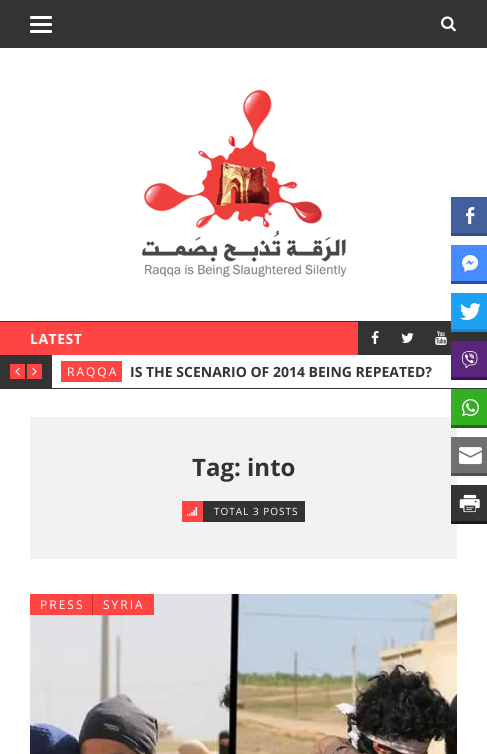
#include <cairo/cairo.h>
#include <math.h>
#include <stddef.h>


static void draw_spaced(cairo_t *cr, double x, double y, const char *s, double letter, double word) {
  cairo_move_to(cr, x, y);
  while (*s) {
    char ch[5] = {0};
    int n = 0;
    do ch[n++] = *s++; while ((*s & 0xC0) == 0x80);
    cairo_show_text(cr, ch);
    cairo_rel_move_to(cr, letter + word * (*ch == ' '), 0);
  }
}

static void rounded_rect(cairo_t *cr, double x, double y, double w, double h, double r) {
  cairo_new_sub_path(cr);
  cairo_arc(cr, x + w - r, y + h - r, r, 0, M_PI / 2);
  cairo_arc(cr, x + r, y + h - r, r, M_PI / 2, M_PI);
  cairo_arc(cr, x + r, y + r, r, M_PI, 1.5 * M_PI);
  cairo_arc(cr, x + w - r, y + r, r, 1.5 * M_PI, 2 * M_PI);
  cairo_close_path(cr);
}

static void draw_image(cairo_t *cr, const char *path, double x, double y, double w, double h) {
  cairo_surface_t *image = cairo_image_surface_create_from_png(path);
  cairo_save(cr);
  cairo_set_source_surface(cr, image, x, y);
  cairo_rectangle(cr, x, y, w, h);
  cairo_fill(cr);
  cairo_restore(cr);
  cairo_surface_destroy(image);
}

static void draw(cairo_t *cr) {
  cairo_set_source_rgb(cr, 1, 1, 1);
  cairo_paint(cr);
  cairo_set_source_rgb(cr, 52 / 255.0, 51 / 255.0, 52 / 255.0);
  cairo_rectangle(cr, 0, 0, 487, 48);
  cairo_fill(cr);
  cairo_set_source_rgb(cr, 1, 1, 1);
  rounded_rect(cr, 30, 16, 22, 3, 1);
  cairo_fill(cr);
  rounded_rect(cr, 30, 23, 22, 3, 1);
  cairo_fill(cr);
  rounded_rect(cr, 30, 30, 22, 3, 1);
  cairo_fill(cr);
  draw_image(cr, "images/1.png", 441, 16, 15, 16);
  draw_image(cr, "images/2.png", 142, 89, 205, 188);
  cairo_set_source_rgb(cr, 52 / 255.0, 51 / 255.0, 52 / 255.0);
  cairo_rectangle(cr, 0, 321, 451, 1);
  cairo_fill(cr);
  cairo_rectangle(cr, 0, 388, 487, 1);
  cairo_fill(cr);
  cairo_rectangle(cr, 358, 322, 129, 33);
  cairo_fill(cr);
  draw_image(cr, "images/3.png", 371, 331, 8, 13);
  draw_image(cr, "images/4.png", 401, 333, 13, 10);
  draw_image(cr, "images/5.png", 435, 331, 12, 14);
  cairo_set_source_rgb(cr, 1, 68 / 255.0, 68 / 255.0);
  cairo_rectangle(cr, 0, 322, 358, 33);
  cairo_fill(cr);
  cairo_set_source_rgb(cr, 52 / 255.0, 51 / 255.0, 52 / 255.0);
  cairo_rectangle(cr, 0, 355, 52, 33);
  cairo_fill(cr);
  cairo_set_source_rgb(cr, 1, 68 / 255.0, 68 / 255.0);
  cairo_rectangle(cr, 10, 364, 15, 15);
  cairo_fill(cr);
  draw_image(cr, "images/6.png", 15, 367, 5, 9);
  cairo_rectangle(cr, 27, 364, 15, 15);
  cairo_fill(cr);
  draw_image(cr, "images/7.png", 32, 367, 5, 9);
  cairo_rectangle(cr, 61, 361, 61, 21);
  cairo_fill(cr);
  cairo_set_source_rgb(cr, 242 / 255.0, 242 / 255.0, 242 / 255.0);
  cairo_rectangle(cr, 30, 417, 427, 142);
  cairo_fill(cr);
  cairo_set_source_rgb(cr, 52 / 255.0, 51 / 255.0, 52 / 255.0);
  cairo_rectangle(cr, 203, 501, 102, 21);
  cairo_fill(cr);
  cairo_set_source_rgb(cr, 1, 68 / 255.0, 68 / 255.0);
  cairo_rectangle(cr, 182, 501, 21, 21);
  cairo_fill(cr);
  draw_image(cr, "images/8.png", 187, 507, 10, 9);
  draw_image(cr, "images/9.png", 30, 594, 427, 160);
  cairo_rectangle(cr, 30, 594, 62, 21);
  cairo_fill(cr);
  cairo_set_source_rgb(cr, 191 / 255.0, 51 / 255.0, 51 / 255.0);
  cairo_rectangle(cr, 92, 594, 1, 21);
  cairo_fill(cr);
  cairo_set_source_rgb(cr, 1, 68 / 255.0, 68 / 255.0);
  cairo_rectangle(cr, 93, 594, 61, 21);
  cairo_fill(cr);
  cairo_set_source_rgb(cr, 53 / 255.0, 78 / 255.0, 131 / 255.0);
  cairo_rectangle(cr, 451, 233, 36, 3);
  cairo_fill(cr);
  cairo_set_source_rgb(cr, 67 / 255.0, 96 / 255.0, 156 / 255.0);
  cairo_rectangle(cr, 451, 197, 36, 36);
  cairo_fill(cr);
  draw_image(cr, "images/10.png", 466, 207, 9, 18);
  cairo_set_source_rgb(cr, 38 / 255.0, 81 / 255.0, 158 / 255.0);
  cairo_rectangle(cr, 451, 281, 36, 3);
  cairo_fill(cr);
  cairo_set_source_rgb(cr, 70 / 255.0, 139 / 255.0, 1);
  cairo_rectangle(cr, 451, 245, 36, 36);
  cairo_fill(cr);
  draw_image(cr, "images/11.png", 462, 255, 17, 17);
  cairo_set_source_rgb(cr, 24 / 255.0, 137 / 255.0, 207 / 255.0);
  cairo_rectangle(cr, 451, 329, 36, 3);
  cairo_fill(cr);
  cairo_set_source_rgb(cr, 29 / 255.0, 161 / 255.0, 242 / 255.0);
  cairo_rectangle(cr, 451, 293, 36, 36);
  cairo_fill(cr);
  draw_image(cr, "images/12.png", 460, 303, 21, 18);
  cairo_set_source_rgb(cr, 62 / 255.0, 17 / 255.0, 93 / 255.0);
  cairo_rectangle(cr, 451, 377, 36, 3);
  cairo_fill(cr);
  cairo_set_source_rgb(cr, 89 / 255.0, 38 / 255.0, 124 / 255.0);
  cairo_rectangle(cr, 451, 341, 36, 36);
  cairo_fill(cr);
  draw_image(cr, "images/13.png", 462, 351, 16, 18);
  cairo_set_source_rgb(cr, 23 / 255.0, 110 / 255.0, 11 / 255.0);
  cairo_rectangle(cr, 451, 425, 36, 3);
  cairo_fill(cr);
  cairo_set_source_rgb(cr, 52 / 255.0, 175 / 255.0, 35 / 255.0);
  cairo_rectangle(cr, 451, 389, 36, 36);
  cairo_fill(cr);
  draw_image(cr, "images/14.png", 462, 399, 17, 17);
  cairo_set_source_rgb(cr, 78 / 255.0, 79 / 255.0, 82 / 255.0);
  cairo_rectangle(cr, 451, 473, 36, 3);
  cairo_fill(cr);
  cairo_set_source_rgb(cr, 113 / 255.0, 112 / 255.0, 112 / 255.0);
  cairo_rectangle(cr, 451, 437, 36, 36);
  cairo_fill(cr);
  draw_image(cr, "images/15.png", 459, 447, 23, 18);
  cairo_set_source_rgb(cr, 27 / 255.0, 26 / 255.0, 26 / 255.0);
  cairo_rectangle(cr, 451, 521, 36, 3);
  cairo_fill(cr);
  cairo_set_source_rgb(cr, 53 / 255.0, 53 / 255.0, 53 / 255.0);
  cairo_rectangle(cr, 451, 485, 36, 36);
  cairo_fill(cr);
  draw_image(cr, "images/16.png", 459, 494, 21, 19);
  cairo_select_font_face(cr, "Open Sans", CAIRO_FONT_SLANT_NORMAL, CAIRO_FONT_WEIGHT_BOLD);
  cairo_set_font_size(cr, 14);
  cairo_set_source_rgb(cr, 1, 1, 1);
  draw_spaced(cr, 30, 344, "LATEST", 0.5, 0);
  cairo_select_font_face(cr, "Open Sans", CAIRO_FONT_SLANT_NORMAL, CAIRO_FONT_WEIGHT_NORMAL);
  cairo_set_font_size(cr, 12);
  draw_spaced(cr, 67, 376, "RAQQA", 2, 0);
  cairo_select_font_face(cr, "Open Sans", CAIRO_FONT_SLANT_NORMAL, CAIRO_FONT_WEIGHT_BOLD);
  cairo_set_font_size(cr, 14);
  cairo_set_source_rgb(cr, 51 / 255.0, 51 / 255.0, 51 / 255.0);
  cairo_move_to(cr, 130, 377);
  cairo_show_text(cr, "IS THE SCENARIO OF 2014 BEING REPEATED?");
  cairo_set_font_size(cr, 24);
  cairo_move_to(cr, 192, 476);
  cairo_show_text(cr, "Tag: into");
  cairo_select_font_face(cr, "Open Sans", CAIRO_FONT_SLANT_NORMAL, CAIRO_FONT_WEIGHT_NORMAL);
  cairo_set_font_size(cr, 10);
  cairo_set_source_rgb(cr, 1, 1, 1);
  draw_spaced(cr, 214, 515, "TOTAL 3 POSTS", 1, 0);
  cairo_set_font_size(cr, 12);
  draw_spaced(cr, 40, 609, "PRESS", 2, 0);
  draw_spaced(cr, 103, 609, "SYRIA", 2, 0);
}

int main(void) {
  cairo_surface_t *surface = cairo_image_surface_create(CAIRO_FORMAT_RGB24, 487, 754);
  cairo_t *cr = cairo_create(surface);
  cairo_font_options_t *options = cairo_font_options_create();
  cairo_font_options_set_hint_metrics(options, CAIRO_HINT_METRICS_OFF);
  cairo_font_options_set_hint_style(options, CAIRO_HINT_STYLE_NONE);
  cairo_set_font_options(cr, options);
  cairo_set_miter_limit(cr, 4);
  draw(cr);
  cairo_surface_write_to_png(surface, "out.png");
  cairo_font_options_destroy(options);
  cairo_destroy(cr);
  cairo_surface_destroy(surface);
  return 0;
}
